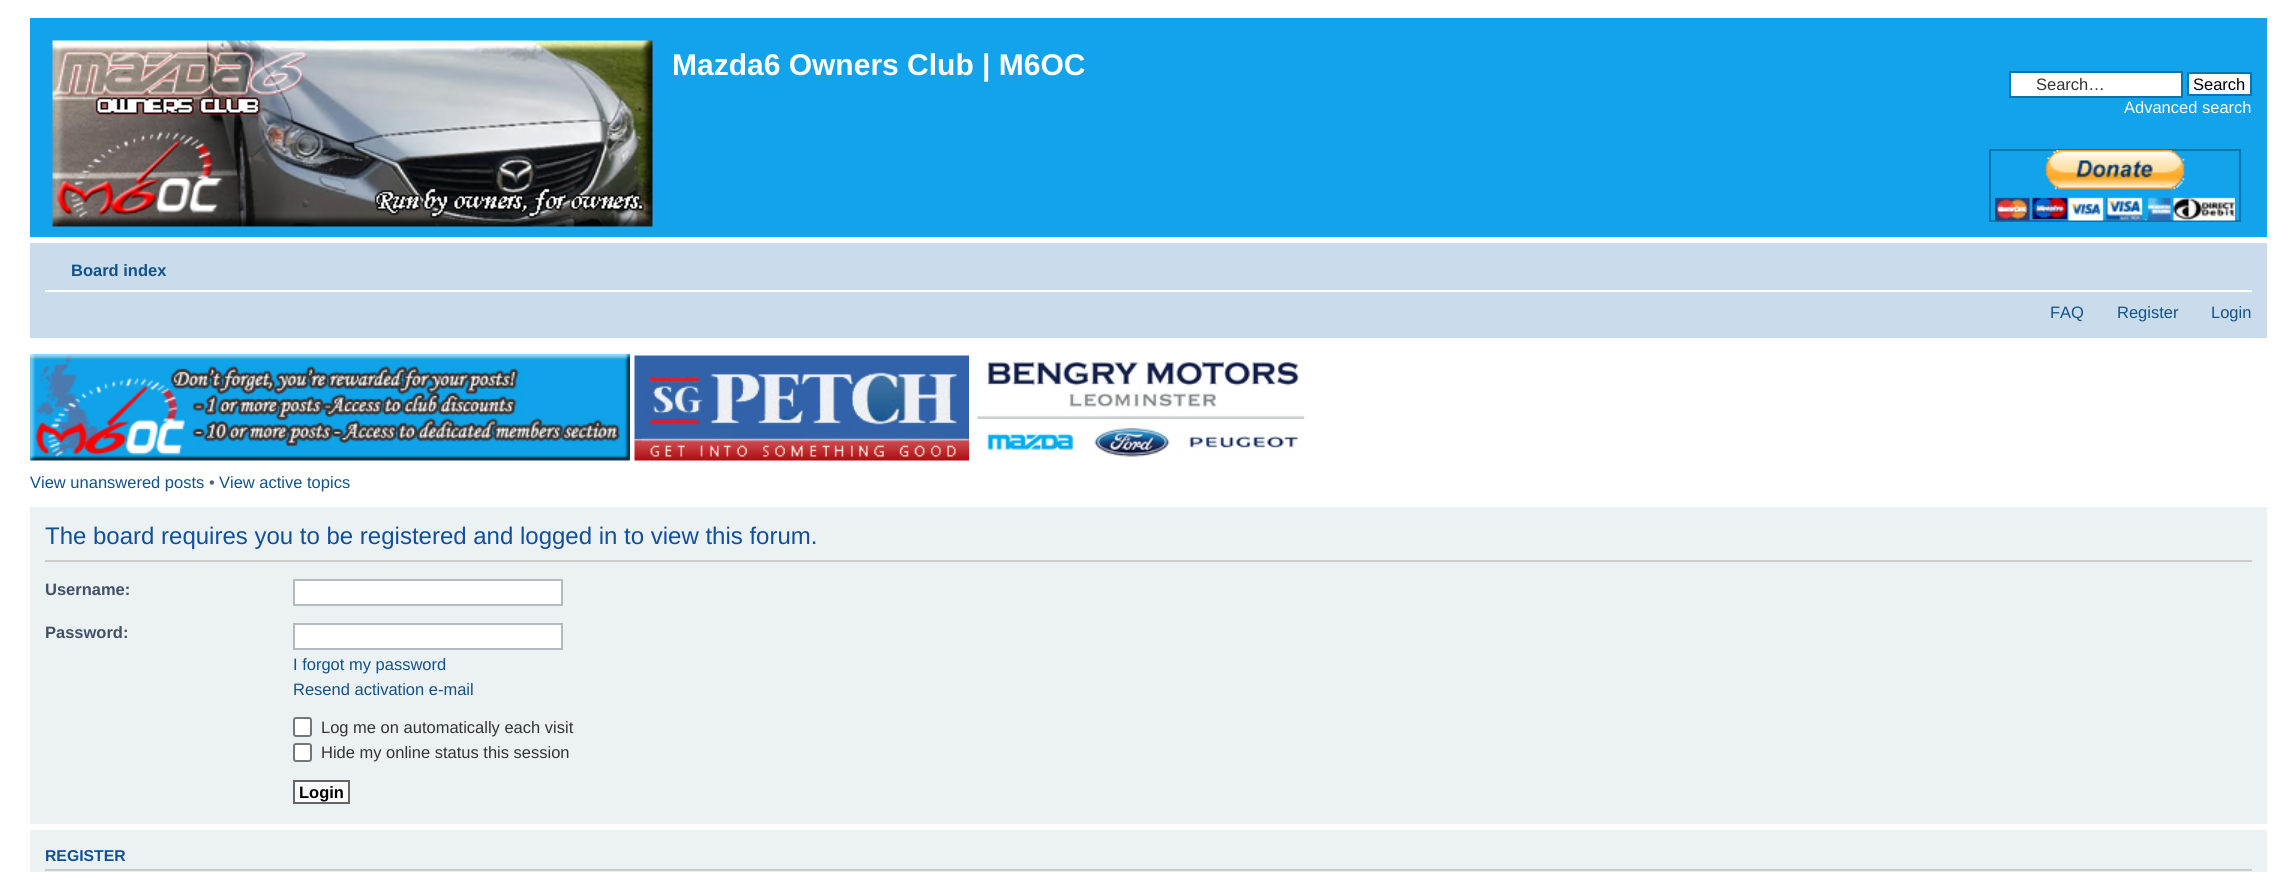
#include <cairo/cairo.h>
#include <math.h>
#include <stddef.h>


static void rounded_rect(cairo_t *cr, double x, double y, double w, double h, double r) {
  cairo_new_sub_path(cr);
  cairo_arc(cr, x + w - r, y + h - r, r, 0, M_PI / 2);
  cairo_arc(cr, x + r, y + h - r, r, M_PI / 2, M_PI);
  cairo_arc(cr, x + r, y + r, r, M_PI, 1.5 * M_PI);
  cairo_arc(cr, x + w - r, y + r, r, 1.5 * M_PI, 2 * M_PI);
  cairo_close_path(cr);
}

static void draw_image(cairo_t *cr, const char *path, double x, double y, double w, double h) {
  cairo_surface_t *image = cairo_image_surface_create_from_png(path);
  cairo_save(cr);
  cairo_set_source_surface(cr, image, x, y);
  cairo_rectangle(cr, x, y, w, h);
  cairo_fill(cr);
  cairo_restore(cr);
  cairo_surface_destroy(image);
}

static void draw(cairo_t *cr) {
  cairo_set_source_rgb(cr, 1, 1, 1);
  cairo_paint(cr);
  cairo_set_source_rgb(cr, 18 / 255.0, 163 / 255.0, 235 / 255.0);
  cairo_rectangle(cr, 30, 18, 2237, 219);
  cairo_fill(cr);
  draw_image(cr, "images/1.png", 52, 40, 601, 187);
  cairo_set_source_rgb(cr, 1, 1, 1);
  cairo_rectangle(cr, 2010, 72, 172, 25);
  cairo_fill_preserve(cr);
  cairo_set_source_rgb(cr, 0, 117 / 255.0, 176 / 255.0);
  cairo_stroke(cr);
  cairo_set_source_rgb(cr, 250 / 255.0, 250 / 255.0, 250 / 255.0);
  cairo_rectangle(cr, 2188, 73, 63, 22);
  cairo_fill_preserve(cr);
  cairo_set_source_rgb(cr, 0, 117 / 255.0, 176 / 255.0);
  cairo_stroke(cr);
  cairo_rectangle(cr, 1990, 150, 250, 71);
  cairo_stroke(cr);
  draw_image(cr, "images/2.png", 1995, 150, 240, 71);
  cairo_set_source_rgb(cr, 202 / 255.0, 220 / 255.0, 235 / 255.0);
  cairo_rectangle(cr, 30, 243, 2237, 95);
  cairo_fill(cr);
  cairo_set_source_rgb(cr, 1, 1, 1);
  cairo_rectangle(cr, 45, 290, 2207, 2);
  cairo_fill(cr);
  draw_image(cr, "images/3.png", 30, 354, 600, 107);
  draw_image(cr, "images/4.png", 634, 355, 335, 106);
  draw_image(cr, "images/5.png", 977, 360, 328, 97);
  cairo_set_source_rgb(cr, 236 / 255.0, 241 / 255.0, 243 / 255.0);
  cairo_rectangle(cr, 30, 507, 2237, 317);
  cairo_fill(cr);
  cairo_set_source_rgb(cr, 204 / 255.0, 204 / 255.0, 204 / 255.0);
  cairo_rectangle(cr, 45, 560, 2207, 2);
  cairo_fill(cr);
  cairo_set_source_rgb(cr, 1, 1, 1);
  cairo_rectangle(cr, 294, 580, 268, 25);
  cairo_fill_preserve(cr);
  cairo_set_source_rgb(cr, 180 / 255.0, 186 / 255.0, 192 / 255.0);
  cairo_stroke(cr);
  cairo_set_source_rgb(cr, 1, 1, 1);
  cairo_rectangle(cr, 294, 624, 268, 25);
  cairo_fill_preserve(cr);
  cairo_set_source_rgb(cr, 180 / 255.0, 186 / 255.0, 192 / 255.0);
  cairo_stroke(cr);
  cairo_set_source_rgb(cr, 1, 1, 1);
  rounded_rect(cr, 294, 718, 17, 18, 2);
  cairo_fill_preserve(cr);
  cairo_set_source_rgb(cr, 118 / 255.0, 118 / 255.0, 118 / 255.0);
  cairo_stroke(cr);
  cairo_set_source_rgb(cr, 1, 1, 1);
  rounded_rect(cr, 294, 744, 17, 17, 2);
  cairo_fill_preserve(cr);
  cairo_set_source_rgb(cr, 118 / 255.0, 118 / 255.0, 118 / 255.0);
  cairo_stroke(cr);
  cairo_set_source_rgb(cr, 250 / 255.0, 250 / 255.0, 250 / 255.0);
  cairo_rectangle(cr, 294, 781, 55, 22);
  cairo_fill_preserve(cr);
  cairo_set_source_rgb(cr, 102 / 255.0, 102 / 255.0, 102 / 255.0);
  cairo_stroke(cr);
  cairo_set_source_rgb(cr, 236 / 255.0, 241 / 255.0, 243 / 255.0);
  cairo_rectangle(cr, 30, 830, 2237, 42);
  cairo_fill(cr);
  cairo_set_source_rgb(cr, 204 / 255.0, 204 / 255.0, 204 / 255.0);
  cairo_rectangle(cr, 45, 869, 2207, 2);
  cairo_fill(cr);
  cairo_select_font_face(cr, "Liberation Sans", CAIRO_FONT_SLANT_NORMAL, CAIRO_FONT_WEIGHT_BOLD);
  cairo_set_font_size(cr, 30);
  cairo_set_source_rgb(cr, 1, 1, 1);
  cairo_move_to(cr, 672, 75);
  cairo_show_text(cr, "Mazda6 Owners Club | M6OC");
  cairo_select_font_face(cr, "Liberation Sans", CAIRO_FONT_SLANT_NORMAL, CAIRO_FONT_WEIGHT_NORMAL);
  cairo_set_font_size(cr, 16.5);
  cairo_set_source_rgb(cr, 51 / 255.0, 51 / 255.0, 51 / 255.0);
  cairo_move_to(cr, 2036, 90);
  cairo_show_text(cr, "Search…");
  cairo_set_source_rgb(cr, 0, 0, 0);
  cairo_move_to(cr, 2193, 90);
  cairo_show_text(cr, "Search");
  cairo_set_source_rgb(cr, 1, 1, 1);
  cairo_move_to(cr, 2124, 113);
  cairo_show_text(cr, "Advanced search");
  cairo_select_font_face(cr, "Liberation Sans", CAIRO_FONT_SLANT_NORMAL, CAIRO_FONT_WEIGHT_BOLD);
  cairo_set_source_rgb(cr, 16 / 255.0, 82 / 255.0, 137 / 255.0);
  cairo_move_to(cr, 71, 276);
  cairo_show_text(cr, "Board index");
  cairo_select_font_face(cr, "Liberation Sans", CAIRO_FONT_SLANT_NORMAL, CAIRO_FONT_WEIGHT_NORMAL);
  cairo_move_to(cr, 2050, 318);
  cairo_show_text(cr, "FAQ");
  cairo_move_to(cr, 2117, 318);
  cairo_show_text(cr, "Register");
  cairo_move_to(cr, 2211, 318);
  cairo_show_text(cr, "Login");
  cairo_move_to(cr, 30, 488);
  cairo_show_text(cr, "View unanswered posts");
  cairo_set_source_rgb(cr, 83 / 255.0, 100 / 255.0, 130 / 255.0);
  cairo_move_to(cr, 209, 488);
  cairo_show_text(cr, "•");
  cairo_set_source_rgb(cr, 16 / 255.0, 82 / 255.0, 137 / 255.0);
  cairo_move_to(cr, 219, 488);
  cairo_show_text(cr, "View active topics");
  cairo_set_font_size(cr, 24);
  cairo_set_source_rgb(cr, 17 / 255.0, 80 / 255.0, 152 / 255.0);
  cairo_move_to(cr, 45, 544);
  cairo_show_text(cr, "The board requires you to be registered and logged in to view this forum.");
  cairo_select_font_face(cr, "Liberation Sans", CAIRO_FONT_SLANT_NORMAL, CAIRO_FONT_WEIGHT_BOLD);
  cairo_set_font_size(cr, 16.5);
  cairo_set_source_rgb(cr, 66 / 255.0, 80 / 255.0, 103 / 255.0);
  cairo_move_to(cr, 45, 595);
  cairo_show_text(cr, "Username:");
  cairo_move_to(cr, 45, 638);
  cairo_show_text(cr, "Password:");
  cairo_select_font_face(cr, "Liberation Sans", CAIRO_FONT_SLANT_NORMAL, CAIRO_FONT_WEIGHT_NORMAL);
  cairo_set_source_rgb(cr, 16 / 255.0, 82 / 255.0, 137 / 255.0);
  cairo_move_to(cr, 293, 670);
  cairo_show_text(cr, "I forgot my password");
  cairo_move_to(cr, 293, 695);
  cairo_show_text(cr, "Resend activation e-mail");
  cairo_set_source_rgb(cr, 51 / 255.0, 51 / 255.0, 51 / 255.0);
  cairo_move_to(cr, 321, 733);
  cairo_show_text(cr, "Log me on automatically each visit");
  cairo_move_to(cr, 321, 758);
  cairo_show_text(cr, "Hide my online status this session");
  cairo_select_font_face(cr, "Liberation Sans", CAIRO_FONT_SLANT_NORMAL, CAIRO_FONT_WEIGHT_BOLD);
  cairo_set_source_rgb(cr, 0, 0, 0);
  cairo_move_to(cr, 299, 798);
  cairo_show_text(cr, "Login");
  cairo_set_font_size(cr, 15.75);
  cairo_set_source_rgb(cr, 17 / 255.0, 80 / 255.0, 152 / 255.0);
  cairo_move_to(cr, 45, 861);
  cairo_show_text(cr, "REGISTER");
}

int main(void) {
  cairo_surface_t *surface = cairo_image_surface_create(CAIRO_FORMAT_RGB24, 2296, 872);
  cairo_t *cr = cairo_create(surface);
  cairo_font_options_t *options = cairo_font_options_create();
  cairo_font_options_set_hint_metrics(options, CAIRO_HINT_METRICS_OFF);
  cairo_font_options_set_hint_style(options, CAIRO_HINT_STYLE_NONE);
  cairo_set_font_options(cr, options);
  cairo_set_miter_limit(cr, 4);
  draw(cr);
  cairo_surface_write_to_png(surface, "out.png");
  cairo_font_options_destroy(options);
  cairo_destroy(cr);
  cairo_surface_destroy(surface);
  return 0;
}
